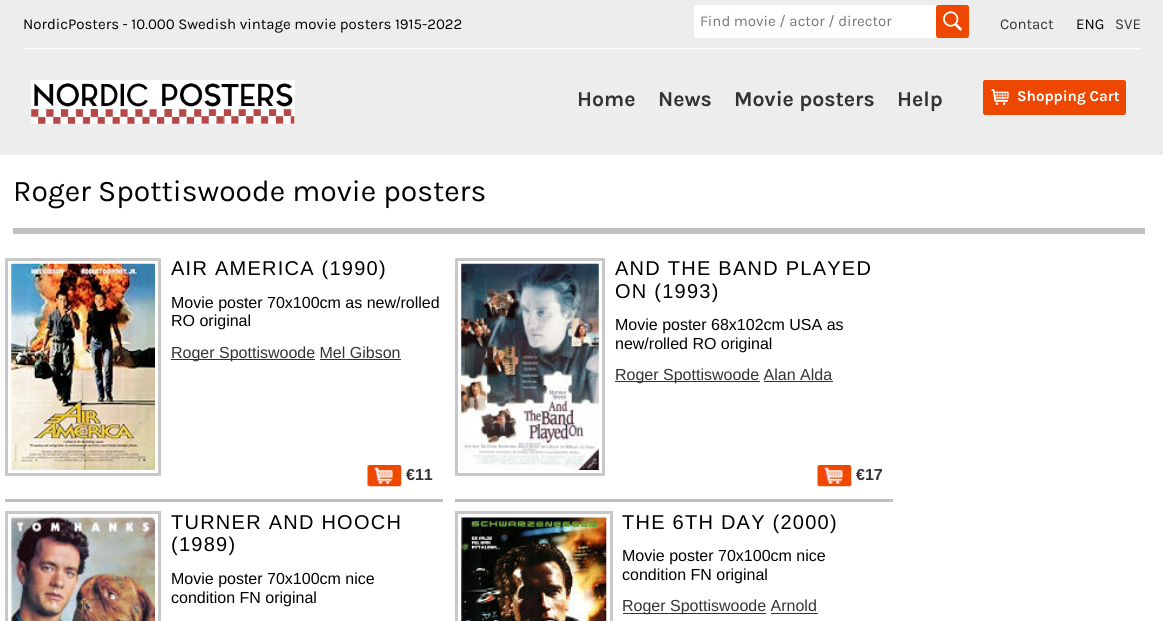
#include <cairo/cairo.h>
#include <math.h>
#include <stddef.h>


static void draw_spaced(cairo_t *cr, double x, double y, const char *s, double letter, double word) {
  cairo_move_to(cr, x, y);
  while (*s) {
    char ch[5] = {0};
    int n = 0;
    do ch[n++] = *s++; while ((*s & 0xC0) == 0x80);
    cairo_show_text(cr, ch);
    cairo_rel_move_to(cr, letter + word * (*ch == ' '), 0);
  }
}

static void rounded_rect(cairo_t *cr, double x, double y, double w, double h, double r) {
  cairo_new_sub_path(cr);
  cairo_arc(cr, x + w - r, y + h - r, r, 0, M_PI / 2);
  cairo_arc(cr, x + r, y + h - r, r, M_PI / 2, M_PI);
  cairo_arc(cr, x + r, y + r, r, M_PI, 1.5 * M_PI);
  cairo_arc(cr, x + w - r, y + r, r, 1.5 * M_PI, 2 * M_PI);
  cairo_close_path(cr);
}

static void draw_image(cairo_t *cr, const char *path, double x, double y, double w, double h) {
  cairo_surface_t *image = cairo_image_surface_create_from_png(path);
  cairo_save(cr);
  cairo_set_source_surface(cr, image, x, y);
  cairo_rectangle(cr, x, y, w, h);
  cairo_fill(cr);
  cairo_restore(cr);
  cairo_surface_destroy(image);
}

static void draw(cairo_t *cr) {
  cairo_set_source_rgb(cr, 1, 1, 1);
  cairo_paint(cr);
  cairo_set_source_rgb(cr, 237 / 255.0, 237 / 255.0, 237 / 255.0);
  cairo_rectangle(cr, 0, 0, 1163, 155);
  cairo_fill(cr);
  cairo_set_source_rgb(cr, 1, 1, 1);
  cairo_rectangle(cr, 24, 48, 1116, 1);
  cairo_fill(cr);
  rounded_rect(cr, 694, 5, 250, 33, 2.5);
  cairo_fill(cr);
  cairo_set_source_rgb(cr, 237 / 255.0, 71 / 255.0, 0);
  rounded_rect(cr, 936, 5, 33, 33, 2.5);
  cairo_fill(cr);
  draw_image(cr, "images/1.png", 943, 11, 20, 20);
  draw_image(cr, "images/2.png", 31, 80, 264, 44);
  rounded_rect(cr, 983.5, 80.5, 142, 34, 2);
  cairo_fill_preserve(cr);
  cairo_set_line_width(cr, 1);
  cairo_stroke(cr);
  draw_image(cr, "images/3.png", 991, 89, 18, 16);
  cairo_set_source_rgb(cr, 192 / 255.0, 192 / 255.0, 192 / 255.0);
  cairo_rectangle(cr, 13, 228, 1132, 6);
  cairo_fill(cr);
  cairo_rectangle(cr, 5, 499, 438, 3);
  cairo_fill(cr);
  cairo_rectangle(cr, 6.5, 259.5, 153, 215);
  cairo_set_source_rgb(cr, 200 / 255.0, 200 / 255.0, 200 / 255.0);
  cairo_set_line_width(cr, 3);
  cairo_stroke(cr);
  draw_image(cr, "images/4.png", 11, 263, 144, 207);
  cairo_set_source_rgb(cr, 51 / 255.0, 51 / 255.0, 51 / 255.0);
  cairo_rectangle(cr, 171, 359, 144, 1);
  cairo_fill(cr);
  cairo_rectangle(cr, 320, 359, 81, 1);
  cairo_fill(cr);
  draw_image(cr, "images/5.png", 367, 465, 35, 22);
  cairo_set_source_rgb(cr, 192 / 255.0, 192 / 255.0, 192 / 255.0);
  cairo_rectangle(cr, 455, 499, 438, 3);
  cairo_fill(cr);
  cairo_rectangle(cr, 456.5, 259.5, 147, 215);
  cairo_set_source_rgb(cr, 200 / 255.0, 200 / 255.0, 200 / 255.0);
  cairo_stroke(cr);
  draw_image(cr, "images/6.png", 461, 263, 138, 207);
  cairo_set_source_rgb(cr, 51 / 255.0, 51 / 255.0, 51 / 255.0);
  cairo_rectangle(cr, 615, 381, 145, 1);
  cairo_fill(cr);
  cairo_rectangle(cr, 764, 381, 69, 1);
  cairo_fill(cr);
  draw_image(cr, "images/5.png", 817, 465, 35, 22);
  cairo_rectangle(cr, 6.5, 512.5, 153, 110);
  cairo_set_source_rgb(cr, 200 / 255.0, 200 / 255.0, 200 / 255.0);
  cairo_stroke(cr);
  draw_image(cr, "images/7.png", 11, 517, 144, 104);
  cairo_rectangle(cr, 456.5, 512.5, 155, 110);
  cairo_stroke(cr);
  draw_image(cr, "images/8.png", 461, 517, 146, 104);
  cairo_set_source_rgb(cr, 51 / 255.0, 51 / 255.0, 51 / 255.0);
  cairo_rectangle(cr, 623, 613, 143, 1);
  cairo_fill(cr);
  cairo_rectangle(cr, 771, 613, 47, 1);
  cairo_fill(cr);
  cairo_select_font_face(cr, "Karla", CAIRO_FONT_SLANT_NORMAL, CAIRO_FONT_WEIGHT_NORMAL);
  cairo_set_font_size(cr, 15);
  cairo_set_source_rgb(cr, 0, 0, 0);
  cairo_move_to(cr, 23, 29);
  cairo_show_text(cr, "NordicPosters - 10.000 Swedish vintage movie posters 1915-2022");
  cairo_set_source_rgb(cr, 117 / 255.0, 117 / 255.0, 117 / 255.0);
  cairo_move_to(cr, 700, 26);
  cairo_show_text(cr, "Find movie / actor / director");
  cairo_set_source_rgb(cr, 51 / 255.0, 51 / 255.0, 51 / 255.0);
  cairo_move_to(cr, 1000, 29);
  cairo_show_text(cr, "Contact");
  cairo_set_source_rgb(cr, 0, 0, 0);
  cairo_move_to(cr, 1076, 29);
  cairo_show_text(cr, "ENG");
  cairo_set_source_rgb(cr, 51 / 255.0, 51 / 255.0, 51 / 255.0);
  cairo_move_to(cr, 1115, 29);
  cairo_show_text(cr, "SVE");
  cairo_select_font_face(cr, "Karla", CAIRO_FONT_SLANT_NORMAL, CAIRO_FONT_WEIGHT_BOLD);
  cairo_set_font_size(cr, 21.25);
  cairo_move_to(cr, 577, 106);
  cairo_show_text(cr, "Home");
  cairo_move_to(cr, 658, 106);
  cairo_show_text(cr, "News");
  cairo_move_to(cr, 734, 106);
  cairo_show_text(cr, "Movie posters");
  cairo_move_to(cr, 897, 106);
  cairo_show_text(cr, "Help");
  cairo_set_font_size(cr, 15);
  cairo_set_source_rgb(cr, 1, 1, 1);
  cairo_move_to(cr, 1017, 101);
  cairo_show_text(cr, "Shopping Cart");
  cairo_select_font_face(cr, "Karla", CAIRO_FONT_SLANT_NORMAL, CAIRO_FONT_WEIGHT_NORMAL);
  cairo_set_font_size(cr, 30);
  cairo_set_source_rgb(cr, 0, 0, 0);
  cairo_move_to(cr, 13, 201);
  cairo_show_text(cr, "Roger Spottiswoode movie posters");
  cairo_select_font_face(cr, "Liberation Sans", CAIRO_FONT_SLANT_NORMAL, CAIRO_FONT_WEIGHT_NORMAL);
  cairo_set_font_size(cr, 20);
  draw_spaced(cr, 171, 275, "AIR AMERICA (1990)", 1.25, 0);
  cairo_set_font_size(cr, 16);
  cairo_move_to(cr, 171, 308);
  cairo_show_text(cr, "Movie poster 70x100cm as new/rolled");
  cairo_move_to(cr, 171, 326);
  cairo_show_text(cr, "RO original");
  cairo_set_source_rgb(cr, 51 / 255.0, 51 / 255.0, 51 / 255.0);
  cairo_move_to(cr, 171, 358);
  cairo_show_text(cr, "Roger Spottiswoode Mel Gibson");
  cairo_select_font_face(cr, "Liberation Sans", CAIRO_FONT_SLANT_NORMAL, CAIRO_FONT_WEIGHT_BOLD);
  cairo_move_to(cr, 406, 480);
  cairo_show_text(cr, "€11");
  cairo_select_font_face(cr, "Liberation Sans", CAIRO_FONT_SLANT_NORMAL, CAIRO_FONT_WEIGHT_NORMAL);
  cairo_set_font_size(cr, 20);
  cairo_set_source_rgb(cr, 0, 0, 0);
  draw_spaced(cr, 615, 275, "AND THE BAND PLAYED", 1.25, 0);
  draw_spaced(cr, 615, 298, "ON (1993)", 1.25, 0);
  cairo_set_font_size(cr, 16);
  cairo_move_to(cr, 615, 330);
  cairo_show_text(cr, "Movie poster 68x102cm USA as");
  cairo_move_to(cr, 615, 349);
  cairo_show_text(cr, "new/rolled RO original");
  cairo_set_source_rgb(cr, 51 / 255.0, 51 / 255.0, 51 / 255.0);
  cairo_move_to(cr, 615, 380);
  cairo_show_text(cr, "Roger Spottiswoode Alan Alda");
  cairo_select_font_face(cr, "Liberation Sans", CAIRO_FONT_SLANT_NORMAL, CAIRO_FONT_WEIGHT_BOLD);
  cairo_move_to(cr, 856, 480);
  cairo_show_text(cr, "€17");
  cairo_select_font_face(cr, "Liberation Sans", CAIRO_FONT_SLANT_NORMAL, CAIRO_FONT_WEIGHT_NORMAL);
  cairo_set_font_size(cr, 20);
  cairo_set_source_rgb(cr, 0, 0, 0);
  draw_spaced(cr, 171, 529, "TURNER AND HOOCH", 1.25, 0);
  draw_spaced(cr, 171, 551, "(1989)", 1.25, 0);
  cairo_set_font_size(cr, 16);
  cairo_move_to(cr, 171, 584);
  cairo_show_text(cr, "Movie poster 70x100cm nice");
  cairo_move_to(cr, 171, 603);
  cairo_show_text(cr, "condition FN original");
  cairo_set_font_size(cr, 20);
  draw_spaced(cr, 622, 529, "THE 6TH DAY (2000)", 1.25, 0);
  cairo_set_font_size(cr, 16);
  cairo_move_to(cr, 622, 561);
  cairo_show_text(cr, "Movie poster 70x100cm nice");
  cairo_move_to(cr, 622, 580);
  cairo_show_text(cr, "condition FN original");
  cairo_set_source_rgb(cr, 51 / 255.0, 51 / 255.0, 51 / 255.0);
  cairo_move_to(cr, 622, 611);
  cairo_show_text(cr, "Roger Spottiswoode Arnold");
}

int main(void) {
  cairo_surface_t *surface = cairo_image_surface_create(CAIRO_FORMAT_RGB24, 1163, 621);
  cairo_t *cr = cairo_create(surface);
  cairo_font_options_t *options = cairo_font_options_create();
  cairo_font_options_set_hint_metrics(options, CAIRO_HINT_METRICS_OFF);
  cairo_font_options_set_hint_style(options, CAIRO_HINT_STYLE_NONE);
  cairo_set_font_options(cr, options);
  cairo_set_miter_limit(cr, 4);
  draw(cr);
  cairo_surface_write_to_png(surface, "out.png");
  cairo_font_options_destroy(options);
  cairo_destroy(cr);
  cairo_surface_destroy(surface);
  return 0;
}
